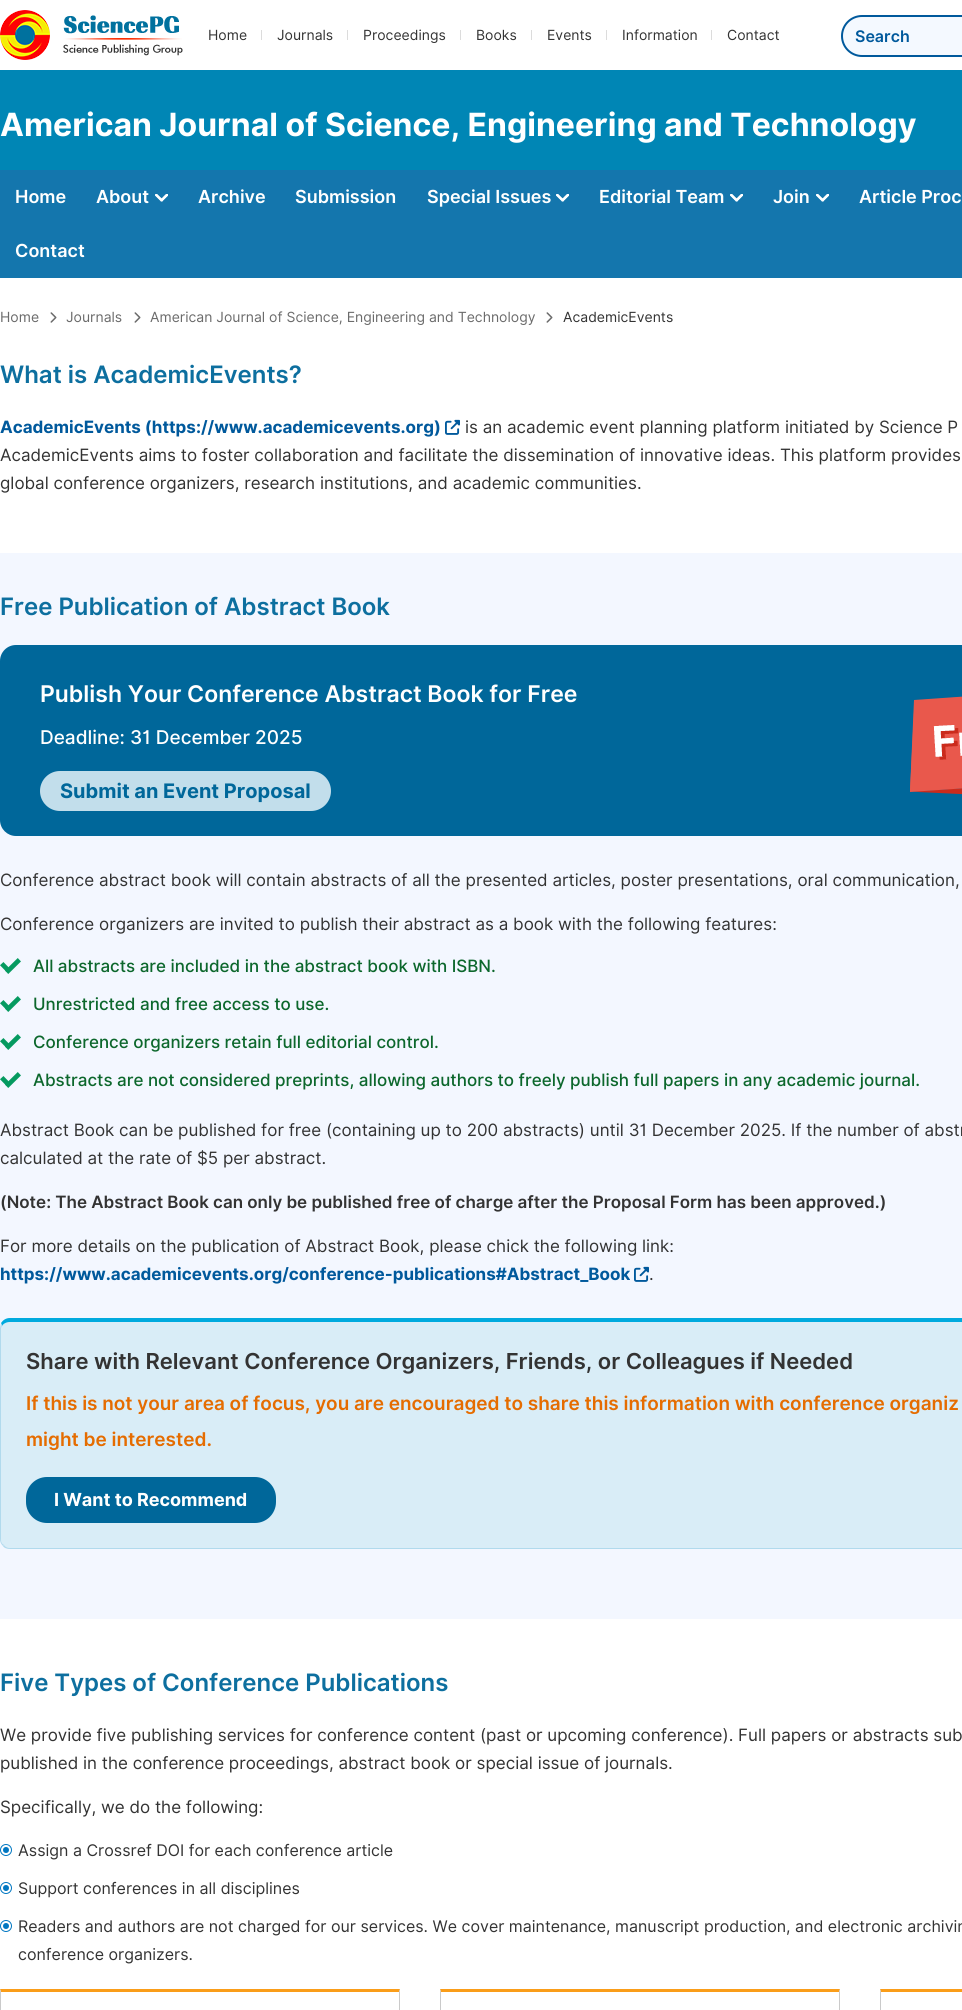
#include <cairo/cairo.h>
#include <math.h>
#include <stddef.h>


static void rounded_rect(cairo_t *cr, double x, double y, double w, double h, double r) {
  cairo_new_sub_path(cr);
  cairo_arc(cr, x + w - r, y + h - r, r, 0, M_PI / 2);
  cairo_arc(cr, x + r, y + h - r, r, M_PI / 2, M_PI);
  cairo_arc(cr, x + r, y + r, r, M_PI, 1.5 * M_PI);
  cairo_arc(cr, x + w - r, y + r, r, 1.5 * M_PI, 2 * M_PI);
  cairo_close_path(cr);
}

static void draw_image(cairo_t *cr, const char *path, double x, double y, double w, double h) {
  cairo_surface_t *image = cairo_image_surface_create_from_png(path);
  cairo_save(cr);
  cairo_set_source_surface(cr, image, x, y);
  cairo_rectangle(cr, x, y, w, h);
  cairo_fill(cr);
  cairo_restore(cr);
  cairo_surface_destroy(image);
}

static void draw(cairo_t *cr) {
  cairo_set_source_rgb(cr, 1, 1, 1);
  cairo_paint(cr);
  draw_image(cr, "images/1.png", 0, 10, 183, 50);
  cairo_set_source_rgb(cr, 220 / 255.0, 220 / 255.0, 220 / 255.0);
  cairo_rectangle(cr, 261, 30, 1, 10);
  cairo_fill(cr);
  cairo_rectangle(cr, 347, 30, 1, 10);
  cairo_fill(cr);
  cairo_rectangle(cr, 460, 30, 1, 10);
  cairo_fill(cr);
  cairo_rectangle(cr, 531, 30, 1, 10);
  cairo_fill(cr);
  cairo_rectangle(cr, 606, 30, 1, 10);
  cairo_fill(cr);
  cairo_rectangle(cr, 711, 30, 1, 10);
  cairo_fill(cr);
  cairo_set_source_rgb(cr, 244 / 255.0, 249 / 255.0, 1);
  rounded_rect(cr, 842, 16, 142, 40, 20);
  cairo_fill_preserve(cr);
  cairo_set_source_rgb(cr, 0, 89 / 255.0, 156 / 255.0);
  cairo_stroke(cr);
  cairo_set_source_rgb(cr, 0, 134 / 255.0, 181 / 255.0);
  cairo_rectangle(cr, 0, 70, 962, 100);
  cairo_fill(cr);
  cairo_set_source_rgb(cr, 20 / 255.0, 118 / 255.0, 173 / 255.0);
  cairo_rectangle(cr, 0, 170, 962, 108);
  cairo_fill(cr);
  draw_image(cr, "images/2.png", 155, 194, 13, 8);
  draw_image(cr, "images/2.png", 556, 194, 13, 8);
  draw_image(cr, "images/2.png", 730, 194, 13, 8);
  draw_image(cr, "images/2.png", 816, 194, 13, 8);
  draw_image(cr, "images/3.png", 50, 312, 7, 11);
  draw_image(cr, "images/3.png", 134, 312, 7, 11);
  draw_image(cr, "images/3.png", 546, 312, 7, 11);
  draw_image(cr, "images/4.png", 445, 419, 15, 16);
  cairo_set_source_rgb(cr, 243 / 255.0, 247 / 255.0, 1);
  cairo_rectangle(cr, 0, 553, 962, 1066);
  cairo_fill(cr);
  cairo_set_source_rgb(cr, 0, 103 / 255.0, 154 / 255.0);
  rounded_rect(cr, 0, 645, 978, 191, 16);
  cairo_fill(cr);
  cairo_set_source_rgb(cr, 194 / 255.0, 222 / 255.0, 235 / 255.0);
  rounded_rect(cr, 40, 771, 291, 40, 20);
  cairo_fill(cr);
  draw_image(cr, "images/5.png", 910, 696, 52, 99);
  draw_image(cr, "images/6.png", 0, 958, 21, 16);
  draw_image(cr, "images/6.png", 0, 996, 21, 16);
  draw_image(cr, "images/6.png", 0, 1034, 21, 16);
  draw_image(cr, "images/6.png", 0, 1072, 21, 16);
  draw_image(cr, "images/7.png", 634, 1266, 15, 16);
  cairo_set_source_rgb(cr, 217 / 255.0, 237 / 255.0, 247 / 255.0);
  cairo_new_path(cr);
  cairo_move_to(cr, 10, 1322);
  cairo_line_to(cr, 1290, 1322);
  cairo_curve_to(cr, 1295, 1322, 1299, 1325, 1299, 1328);
  cairo_line_to(cr, 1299, 1539);
  cairo_curve_to(cr, 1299, 1544, 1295, 1548, 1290, 1548);
  cairo_line_to(cr, 10, 1548);
  cairo_curve_to(cr, 5, 1548, 1, 1544, 1, 1539);
  cairo_line_to(cr, 1, 1328);
  cairo_curve_to(cr, 1, 1325, 5, 1322, 10, 1322);
  cairo_close_path(cr);
  cairo_fill(cr);
  cairo_set_source_rgb(cr, 0, 170 / 255.0, 222 / 255.0);
  cairo_new_path(cr);
  cairo_move_to(cr, 10, 1318);
  cairo_curve_to(cr, 6, 1318, 3, 1320, 1, 1323);
  cairo_line_to(cr, 2, 1326);
  cairo_curve_to(cr, 3, 1324, 6, 1322, 10, 1322);
  cairo_line_to(cr, 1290, 1322);
  cairo_curve_to(cr, 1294, 1322, 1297, 1324, 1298, 1326);
  cairo_line_to(cr, 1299, 1323);
  cairo_curve_to(cr, 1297, 1320, 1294, 1318, 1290, 1318);
  cairo_close_path(cr);
  cairo_fill(cr);
  cairo_set_source_rgb(cr, 177 / 255.0, 218 / 255.0, 237 / 255.0);
  cairo_new_path(cr);
  cairo_move_to(cr, 10, 1549);
  cairo_line_to(cr, 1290, 1549);
  cairo_curve_to(cr, 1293, 1549, 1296, 1548, 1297, 1546);
  cairo_line_to(cr, 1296, 1545);
  cairo_curve_to(cr, 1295, 1547, 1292, 1548, 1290, 1548);
  cairo_line_to(cr, 10, 1548);
  cairo_curve_to(cr, 8, 1548, 5, 1547, 4, 1545);
  cairo_line_to(cr, 3, 1546);
  cairo_curve_to(cr, 4, 1548, 7, 1549, 10, 1549);
  cairo_close_path(cr);
  cairo_fill(cr);
  cairo_new_path(cr);
  cairo_move_to(cr, 0, 1328);
  cairo_line_to(cr, 0, 1539);
  cairo_curve_to(cr, 0, 1542, 1, 1544, 3, 1546);
  cairo_line_to(cr, 4, 1545);
  cairo_curve_to(cr, 2, 1544, 1, 1542, 1, 1539);
  cairo_line_to(cr, 1, 1328);
  cairo_line_to(cr, 2, 1326);
  cairo_line_to(cr, 1, 1323);
  cairo_close_path(cr);
  cairo_fill(cr);
  cairo_set_source_rgb(cr, 0, 103 / 255.0, 154 / 255.0);
  rounded_rect(cr, 26, 1477, 250, 46, 21);
  cairo_fill(cr);
  cairo_arc(cr, 6, 1850, 5.5, 0, 2 * M_PI);
  cairo_set_source_rgb(cr, 0, 119 / 255.0, 194 / 255.0);
  cairo_set_line_width(cr, 1);
  cairo_stroke(cr);
  cairo_arc(cr, 6, 1850, 3, 0, 2 * M_PI);
  cairo_fill(cr);
  cairo_arc(cr, 6, 1888, 5.5, 0, 2 * M_PI);
  cairo_stroke(cr);
  cairo_arc(cr, 6, 1888, 3, 0, 2 * M_PI);
  cairo_fill(cr);
  cairo_arc(cr, 6, 1926, 5.5, 0, 2 * M_PI);
  cairo_stroke(cr);
  cairo_arc(cr, 6, 1926, 3, 0, 2 * M_PI);
  cairo_fill(cr);
  cairo_set_source_rgb(cr, 250 / 255.0, 157 / 255.0, 25 / 255.0);
  cairo_new_path(cr);
  cairo_move_to(cr, 0, 1989);
  cairo_line_to(cr, 400, 1989);
  cairo_line_to(cr, 399, 1992);
  cairo_line_to(cr, 1, 1992);
  cairo_close_path(cr);
  cairo_fill(cr);
  cairo_set_source_rgb(cr, 202 / 255.0, 202 / 255.0, 202 / 255.0);
  cairo_new_path(cr);
  cairo_move_to(cr, 400, 1989);
  cairo_line_to(cr, 400, 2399);
  cairo_line_to(cr, 399, 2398);
  cairo_line_to(cr, 399, 1992);
  cairo_close_path(cr);
  cairo_fill(cr);
  cairo_new_path(cr);
  cairo_move_to(cr, 0, 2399);
  cairo_line_to(cr, 0, 1989);
  cairo_line_to(cr, 1, 1992);
  cairo_line_to(cr, 1, 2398);
  cairo_close_path(cr);
  cairo_fill(cr);
  cairo_set_source_rgb(cr, 250 / 255.0, 157 / 255.0, 25 / 255.0);
  cairo_new_path(cr);
  cairo_move_to(cr, 440, 1989);
  cairo_line_to(cr, 840, 1989);
  cairo_line_to(cr, 839, 1992);
  cairo_line_to(cr, 441, 1992);
  cairo_close_path(cr);
  cairo_fill(cr);
  cairo_set_source_rgb(cr, 202 / 255.0, 202 / 255.0, 202 / 255.0);
  cairo_new_path(cr);
  cairo_move_to(cr, 840, 1989);
  cairo_line_to(cr, 840, 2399);
  cairo_line_to(cr, 839, 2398);
  cairo_line_to(cr, 839, 1992);
  cairo_close_path(cr);
  cairo_fill(cr);
  cairo_new_path(cr);
  cairo_move_to(cr, 440, 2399);
  cairo_line_to(cr, 440, 1989);
  cairo_line_to(cr, 441, 1992);
  cairo_line_to(cr, 441, 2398);
  cairo_close_path(cr);
  cairo_fill(cr);
  cairo_set_source_rgb(cr, 250 / 255.0, 157 / 255.0, 25 / 255.0);
  cairo_new_path(cr);
  cairo_move_to(cr, 880, 1989);
  cairo_line_to(cr, 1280, 1989);
  cairo_line_to(cr, 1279, 1992);
  cairo_line_to(cr, 881, 1992);
  cairo_close_path(cr);
  cairo_fill(cr);
  cairo_set_source_rgb(cr, 202 / 255.0, 202 / 255.0, 202 / 255.0);
  cairo_new_path(cr);
  cairo_move_to(cr, 880, 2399);
  cairo_line_to(cr, 880, 1989);
  cairo_line_to(cr, 881, 1992);
  cairo_line_to(cr, 881, 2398);
  cairo_close_path(cr);
  cairo_fill(cr);
  cairo_select_font_face(cr, "Inter", CAIRO_FONT_SLANT_NORMAL, CAIRO_FONT_WEIGHT_NORMAL);
  cairo_set_font_size(cr, 14);
  cairo_set_source_rgb(cr, 51 / 255.0, 51 / 255.0, 51 / 255.0);
  cairo_move_to(cr, 208, 40);
  cairo_show_text(cr, "Home");
  cairo_move_to(cr, 277, 40);
  cairo_show_text(cr, "Journals");
  cairo_move_to(cr, 363, 40);
  cairo_show_text(cr, "Proceedings");
  cairo_move_to(cr, 476, 40);
  cairo_show_text(cr, "Books");
  cairo_move_to(cr, 547, 40);
  cairo_show_text(cr, "Events");
  cairo_move_to(cr, 622, 40);
  cairo_show_text(cr, "Information");
  cairo_move_to(cr, 727, 40);
  cairo_show_text(cr, "Contact");
  cairo_select_font_face(cr, "Inter SemiBold", CAIRO_FONT_SLANT_NORMAL, CAIRO_FONT_WEIGHT_NORMAL);
  cairo_set_font_size(cr, 16);
  cairo_set_source_rgb(cr, 0, 89 / 255.0, 156 / 255.0);
  cairo_move_to(cr, 855, 42);
  cairo_show_text(cr, "Search");
  cairo_select_font_face(cr, "Inter", CAIRO_FONT_SLANT_NORMAL, CAIRO_FONT_WEIGHT_BOLD);
  cairo_set_font_size(cr, 32);
  cairo_set_source_rgb(cr, 1, 1, 1);
  cairo_move_to(cr, 0, 136);
  cairo_show_text(cr, "American Journal of Science, Engineering and Technology");
  cairo_select_font_face(cr, "Inter SemiBold", CAIRO_FONT_SLANT_NORMAL, CAIRO_FONT_WEIGHT_NORMAL);
  cairo_set_font_size(cr, 18);
  cairo_move_to(cr, 15, 203);
  cairo_show_text(cr, "Home");
  cairo_move_to(cr, 96, 203);
  cairo_show_text(cr, "About");
  cairo_move_to(cr, 198, 203);
  cairo_show_text(cr, "Archive");
  cairo_move_to(cr, 295, 203);
  cairo_show_text(cr, "Submission");
  cairo_move_to(cr, 427, 203);
  cairo_show_text(cr, "Special Issues");
  cairo_move_to(cr, 599, 203);
  cairo_show_text(cr, "Editorial Team");
  cairo_move_to(cr, 773, 203);
  cairo_show_text(cr, "Join");
  cairo_move_to(cr, 859, 203);
  cairo_show_text(cr, "Article Proc");
  cairo_move_to(cr, 15, 257);
  cairo_show_text(cr, "Contact");
  cairo_select_font_face(cr, "Inter", CAIRO_FONT_SLANT_NORMAL, CAIRO_FONT_WEIGHT_NORMAL);
  cairo_set_font_size(cr, 14);
  cairo_set_source_rgb(cr, 107 / 255.0, 107 / 255.0, 107 / 255.0);
  cairo_move_to(cr, 0, 322);
  cairo_show_text(cr, "Home");
  cairo_move_to(cr, 66, 322);
  cairo_show_text(cr, "Journals");
  cairo_move_to(cr, 150, 322);
  cairo_show_text(cr, "American Journal of Science, Engineering and Technology");
  cairo_set_source_rgb(cr, 51 / 255.0, 51 / 255.0, 51 / 255.0);
  cairo_move_to(cr, 563, 322);
  cairo_show_text(cr, "AcademicEvents");
  cairo_select_font_face(cr, "Inter SemiBold", CAIRO_FONT_SLANT_NORMAL, CAIRO_FONT_WEIGHT_NORMAL);
  cairo_set_font_size(cr, 24);
  cairo_set_source_rgb(cr, 13 / 255.0, 111 / 255.0, 159 / 255.0);
  cairo_move_to(cr, 0, 383);
  cairo_show_text(cr, "What is AcademicEvents?");
  cairo_select_font_face(cr, "Inter", CAIRO_FONT_SLANT_NORMAL, CAIRO_FONT_WEIGHT_BOLD);
  cairo_set_font_size(cr, 17);
  cairo_set_source_rgb(cr, 0, 89 / 255.0, 156 / 255.0);
  cairo_move_to(cr, 0, 433);
  cairo_show_text(cr, "AcademicEvents (https://www.academicevents.org)");
  cairo_select_font_face(cr, "Inter", CAIRO_FONT_SLANT_NORMAL, CAIRO_FONT_WEIGHT_NORMAL);
  cairo_set_source_rgb(cr, 51 / 255.0, 51 / 255.0, 51 / 255.0);
  cairo_move_to(cr, 465, 433);
  cairo_show_text(cr, "is an academic event planning platform initiated by Science P");
  cairo_move_to(cr, 0, 461);
  cairo_show_text(cr, "AcademicEvents aims to foster collaboration and facilitate the dissemination of innovative ideas. This platform provides");
  cairo_move_to(cr, 0, 489);
  cairo_show_text(cr, "global conference organizers, research institutions, and academic communities.");
  cairo_select_font_face(cr, "Inter SemiBold", CAIRO_FONT_SLANT_NORMAL, CAIRO_FONT_WEIGHT_NORMAL);
  cairo_set_font_size(cr, 24);
  cairo_set_source_rgb(cr, 13 / 255.0, 111 / 255.0, 159 / 255.0);
  cairo_move_to(cr, 0, 615);
  cairo_show_text(cr, "Free Publication of Abstract Book");
  cairo_set_font_size(cr, 23);
  cairo_set_source_rgb(cr, 1, 1, 1);
  cairo_move_to(cr, 40, 702);
  cairo_show_text(cr, "Publish Your Conference Abstract Book for Free");
  cairo_select_font_face(cr, "Inter Medium", CAIRO_FONT_SLANT_NORMAL, CAIRO_FONT_WEIGHT_NORMAL);
  cairo_set_font_size(cr, 19);
  cairo_move_to(cr, 40, 744);
  cairo_show_text(cr, "Deadline: 31 December 2025");
  cairo_select_font_face(cr, "Inter", CAIRO_FONT_SLANT_NORMAL, CAIRO_FONT_WEIGHT_BOLD);
  cairo_set_font_size(cr, 20);
  cairo_set_source_rgb(cr, 0, 103 / 255.0, 154 / 255.0);
  cairo_move_to(cr, 60, 798);
  cairo_show_text(cr, "Submit an Event Proposal");
  cairo_select_font_face(cr, "Inter", CAIRO_FONT_SLANT_NORMAL, CAIRO_FONT_WEIGHT_NORMAL);
  cairo_set_font_size(cr, 17);
  cairo_set_source_rgb(cr, 51 / 255.0, 51 / 255.0, 51 / 255.0);
  cairo_move_to(cr, 0, 886);
  cairo_show_text(cr, "Conference abstract book will contain abstracts of all the presented articles, poster presentations, oral communication,");
  cairo_move_to(cr, 0, 930);
  cairo_show_text(cr, "Conference organizers are invited to publish their abstract as a book with the following features:");
  cairo_select_font_face(cr, "Inter Medium", CAIRO_FONT_SLANT_NORMAL, CAIRO_FONT_WEIGHT_NORMAL);
  cairo_set_source_rgb(cr, 12 / 255.0, 103 / 255.0, 44 / 255.0);
  cairo_move_to(cr, 33, 972);
  cairo_show_text(cr, "All abstracts are included in the abstract book with ISBN.");
  cairo_move_to(cr, 33, 1010);
  cairo_show_text(cr, "Unrestricted and free access to use.");
  cairo_move_to(cr, 33, 1048);
  cairo_show_text(cr, "Conference organizers retain full editorial control.");
  cairo_move_to(cr, 33, 1086);
  cairo_show_text(cr, "Abstracts are not considered preprints, allowing authors to freely publish full papers in any academic journal.");
  cairo_select_font_face(cr, "Inter", CAIRO_FONT_SLANT_NORMAL, CAIRO_FONT_WEIGHT_NORMAL);
  cairo_set_source_rgb(cr, 51 / 255.0, 51 / 255.0, 51 / 255.0);
  cairo_move_to(cr, 0, 1136);
  cairo_show_text(cr, "Abstract Book can be published for free (containing up to 200 abstracts) until 31 December 2025. If the number of abstr");
  cairo_move_to(cr, 0, 1164);
  cairo_show_text(cr, "calculated at the rate of $5 per abstract.");
  cairo_select_font_face(cr, "Inter SemiBold", CAIRO_FONT_SLANT_NORMAL, CAIRO_FONT_WEIGHT_NORMAL);
  cairo_move_to(cr, 0, 1208);
  cairo_show_text(cr, "(Note: The Abstract Book can only be published free of charge after the Proposal Form has been approved.)");
  cairo_select_font_face(cr, "Inter", CAIRO_FONT_SLANT_NORMAL, CAIRO_FONT_WEIGHT_NORMAL);
  cairo_move_to(cr, 0, 1252);
  cairo_show_text(cr, "For more details on the publication of Abstract Book, please chick the following link:");
  cairo_select_font_face(cr, "Inter", CAIRO_FONT_SLANT_NORMAL, CAIRO_FONT_WEIGHT_BOLD);
  cairo_set_source_rgb(cr, 0, 89 / 255.0, 156 / 255.0);
  cairo_move_to(cr, 0, 1280);
  cairo_show_text(cr, "https://www.academicevents.org/conference-publications#Abstract_Book");
  cairo_select_font_face(cr, "Inter", CAIRO_FONT_SLANT_NORMAL, CAIRO_FONT_WEIGHT_NORMAL);
  cairo_set_source_rgb(cr, 51 / 255.0, 51 / 255.0, 51 / 255.0);
  cairo_move_to(cr, 649, 1280);
  cairo_show_text(cr, ".");
  cairo_select_font_face(cr, "Inter SemiBold", CAIRO_FONT_SLANT_NORMAL, CAIRO_FONT_WEIGHT_NORMAL);
  cairo_set_font_size(cr, 22);
  cairo_move_to(cr, 26, 1369);
  cairo_show_text(cr, "Share with Relevant Conference Organizers, Friends, or Colleagues if Needed");
  cairo_set_font_size(cr, 19);
  cairo_set_source_rgb(cr, 229 / 255.0, 108 / 255.0, 0);
  cairo_move_to(cr, 26, 1410);
  cairo_show_text(cr, "If this is not your area of focus, you are encouraged to share this information with conference organiz");
  cairo_move_to(cr, 26, 1446);
  cairo_show_text(cr, "might be interested.");
  cairo_select_font_face(cr, "Inter", CAIRO_FONT_SLANT_NORMAL, CAIRO_FONT_WEIGHT_BOLD);
  cairo_set_font_size(cr, 18);
  cairo_set_source_rgb(cr, 1, 1, 1);
  cairo_move_to(cr, 54, 1506);
  cairo_show_text(cr, "I Want to Recommend");
  cairo_select_font_face(cr, "Inter SemiBold", CAIRO_FONT_SLANT_NORMAL, CAIRO_FONT_WEIGHT_NORMAL);
  cairo_set_font_size(cr, 24);
  cairo_set_source_rgb(cr, 13 / 255.0, 111 / 255.0, 159 / 255.0);
  cairo_move_to(cr, 0, 1691);
  cairo_show_text(cr, "Five Types of Conference Publications");
  cairo_select_font_face(cr, "Inter", CAIRO_FONT_SLANT_NORMAL, CAIRO_FONT_WEIGHT_NORMAL);
  cairo_set_font_size(cr, 17);
  cairo_set_source_rgb(cr, 51 / 255.0, 51 / 255.0, 51 / 255.0);
  cairo_move_to(cr, 0, 1741);
  cairo_show_text(cr, "We provide five publishing services for conference content (past or upcoming conference). Full papers or abstracts sub");
  cairo_move_to(cr, 0, 1769);
  cairo_show_text(cr, "published in the conference proceedings, abstract book or special issue of journals.");
  cairo_move_to(cr, 0, 1813);
  cairo_show_text(cr, "Specifically, we do the following:");
  cairo_set_font_size(cr, 16);
  cairo_move_to(cr, 18, 1856);
  cairo_show_text(cr, "Assign a Crossref DOI for each conference article");
  cairo_move_to(cr, 18, 1894);
  cairo_show_text(cr, "Support conferences in all disciplines");
  cairo_move_to(cr, 18, 1932);
  cairo_show_text(cr, "Readers and authors are not charged for our services. We cover maintenance, manuscript production, and electronic archivin");
  cairo_move_to(cr, 18, 1960);
  cairo_show_text(cr, "conference organizers.");
}

int main(void) {
  cairo_surface_t *surface = cairo_image_surface_create(CAIRO_FORMAT_RGB24, 962, 2010);
  cairo_t *cr = cairo_create(surface);
  cairo_font_options_t *options = cairo_font_options_create();
  cairo_font_options_set_hint_metrics(options, CAIRO_HINT_METRICS_OFF);
  cairo_font_options_set_hint_style(options, CAIRO_HINT_STYLE_NONE);
  cairo_set_font_options(cr, options);
  cairo_set_miter_limit(cr, 4);
  draw(cr);
  cairo_surface_write_to_png(surface, "out.png");
  cairo_font_options_destroy(options);
  cairo_destroy(cr);
  cairo_surface_destroy(surface);
  return 0;
}
